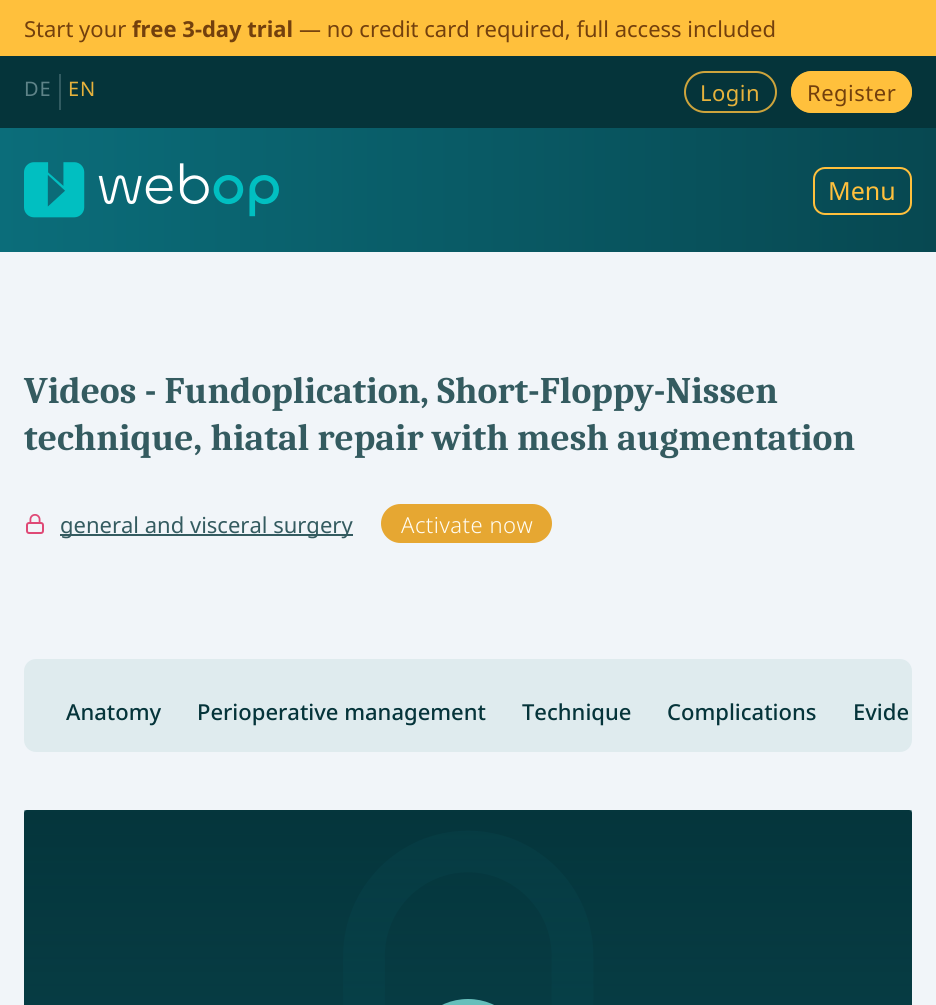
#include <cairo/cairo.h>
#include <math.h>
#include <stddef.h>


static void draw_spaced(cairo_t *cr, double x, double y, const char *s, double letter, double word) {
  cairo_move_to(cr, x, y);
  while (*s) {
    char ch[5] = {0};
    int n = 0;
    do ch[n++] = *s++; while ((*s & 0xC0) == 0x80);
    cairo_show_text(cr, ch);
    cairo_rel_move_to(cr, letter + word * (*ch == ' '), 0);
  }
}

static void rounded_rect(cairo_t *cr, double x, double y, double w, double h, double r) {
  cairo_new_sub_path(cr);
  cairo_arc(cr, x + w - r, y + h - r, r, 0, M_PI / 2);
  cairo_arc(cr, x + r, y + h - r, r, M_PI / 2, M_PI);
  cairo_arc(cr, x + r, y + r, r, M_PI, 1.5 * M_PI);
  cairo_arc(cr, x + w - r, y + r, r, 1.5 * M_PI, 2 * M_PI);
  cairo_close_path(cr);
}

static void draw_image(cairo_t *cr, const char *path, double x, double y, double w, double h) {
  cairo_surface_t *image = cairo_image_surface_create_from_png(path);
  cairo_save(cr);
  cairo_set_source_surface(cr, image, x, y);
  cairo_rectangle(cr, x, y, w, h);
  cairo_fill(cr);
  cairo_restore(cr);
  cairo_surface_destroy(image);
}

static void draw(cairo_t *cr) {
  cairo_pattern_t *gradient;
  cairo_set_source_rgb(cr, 241 / 255.0, 245 / 255.0, 249 / 255.0);
  cairo_paint(cr);
  cairo_set_source_rgb(cr, 1, 192 / 255.0, 60 / 255.0);
  cairo_rectangle(cr, 0, 0, 936, 56);
  cairo_fill(cr);
  cairo_set_source_rgb(cr, 5 / 255.0, 52 / 255.0, 58 / 255.0);
  cairo_rectangle(cr, 0, 56, 936, 72);
  cairo_fill(cr);
  cairo_set_source_rgb(cr, 49 / 255.0, 91 / 255.0, 97 / 255.0);
  cairo_rectangle(cr, 59, 74, 2, 36);
  cairo_fill(cr);
  rounded_rect(cr, 685, 72, 91, 40, 20);
  cairo_set_source_rgb(cr, 205 / 255.0, 164 / 255.0, 60 / 255.0);
  cairo_stroke(cr);
  cairo_set_source_rgb(cr, 1, 192 / 255.0, 60 / 255.0);
  rounded_rect(cr, 791, 71, 121, 42, 21);
  cairo_fill(cr);
  rounded_rect(cr, 792, 72, 119, 40, 20);
  cairo_set_source_rgba(cr, 1, 192 / 255.0, 60 / 255.0, 0.8);
  cairo_stroke(cr);
  gradient = cairo_pattern_create_linear(0, 190, 936, 190);
  cairo_pattern_add_color_stop_rgba(gradient, 0, 11 / 255.0, 109 / 255.0, 122 / 255.0, 1);
  cairo_pattern_add_color_stop_rgba(gradient, 1, 7 / 255.0, 72 / 255.0, 81 / 255.0, 1);
  cairo_set_source(cr, gradient);
  cairo_pattern_destroy(gradient);
  cairo_rectangle(cr, 0, 128, 936, 124);
  cairo_fill(cr);
  draw_image(cr, "images/1.png", 24, 162, 255, 56);
  rounded_rect(cr, 814, 168, 97, 46, 11);
  cairo_set_source_rgb(cr, 1, 192 / 255.0, 60 / 255.0);
  cairo_stroke(cr);
  draw_image(cr, "images/2.png", 26, 514, 18, 20);
  cairo_set_source_rgb(cr, 52 / 255.0, 91 / 255.0, 96 / 255.0);
  cairo_rectangle(cr, 60, 534, 293, 2);
  cairo_fill(cr);
  cairo_set_source_rgb(cr, 230 / 255.0, 167 / 255.0, 50 / 255.0);
  rounded_rect(cr, 381, 504, 171, 39, 19.5);
  cairo_fill(cr);
  cairo_set_source_rgb(cr, 223 / 255.0, 235 / 255.0, 238 / 255.0);
  rounded_rect(cr, 24, 659, 888, 93, 12);
  cairo_fill(cr);
  cairo_set_source_rgb(cr, 4 / 255.0, 41 / 255.0, 46 / 255.0);
  rounded_rect(cr, 24, 810, 888, 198, 3);
  cairo_fill(cr);
  cairo_new_path(cr);
  cairo_move_to(cr, 364, 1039);
  cairo_line_to(cr, 364, 956);
  cairo_curve_to(cr, 364, 898.5, 410.5, 851.5, 468, 851.5);
  cairo_curve_to(cr, 525.5, 851.5, 572.5, 898.5, 572.5, 956);
  cairo_line_to(cr, 572.5, 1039);
  cairo_set_source_rgb(cr, 5 / 255.0, 50 / 255.0, 56 / 255.0);
  cairo_set_line_width(cr, 41.7);
  cairo_set_line_cap(cr, CAIRO_LINE_CAP_ROUND);
  cairo_set_line_join(cr, CAIRO_LINE_JOIN_ROUND);
  cairo_stroke(cr);
  gradient = cairo_pattern_create_linear(468, 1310, 468, 810);
  cairo_pattern_add_color_stop_rgba(gradient, 0, 7 / 255.0, 72 / 255.0, 81 / 255.0, 0.9);
  cairo_pattern_add_color_stop_rgba(gradient, 1, 7 / 255.0, 72 / 255.0, 81 / 255.0, 0.4);
  cairo_set_source(cr, gradient);
  cairo_pattern_destroy(gradient);
  cairo_rectangle(cr, 24, 810, 888, 195);
  cairo_fill(cr);
  cairo_set_source_rgb(cr, 102 / 255.0, 191 / 255.0, 187 / 255.0);
  rounded_rect(cr, 408, 999, 120, 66, 60);
  cairo_fill(cr);
  cairo_select_font_face(cr, "Noto Sans", CAIRO_FONT_SLANT_NORMAL, CAIRO_FONT_WEIGHT_NORMAL);
  cairo_set_font_size(cr, 22);
  cairo_set_source_rgb(cr, 115 / 255.0, 64 / 255.0, 13 / 255.0);
  cairo_move_to(cr, 24, 37);
  cairo_show_text(cr, "Start your");
  cairo_select_font_face(cr, "Noto Sans", CAIRO_FONT_SLANT_NORMAL, CAIRO_FONT_WEIGHT_BOLD);
  cairo_move_to(cr, 132, 37);
  cairo_show_text(cr, "free 3-day trial");
  cairo_select_font_face(cr, "Noto Sans", CAIRO_FONT_SLANT_NORMAL, CAIRO_FONT_WEIGHT_NORMAL);
  cairo_move_to(cr, 299, 37);
  cairo_show_text(cr, "— no credit card required, full access included");
  cairo_set_font_size(cr, 20);
  cairo_set_source_rgb(cr, 94 / 255.0, 131 / 255.0, 136 / 255.0);
  draw_spaced(cr, 24, 96, "DE", 1, 0);
  cairo_set_source_rgb(cr, 230 / 255.0, 178 / 255.0, 60 / 255.0);
  draw_spaced(cr, 68, 96, "EN", 1, 0);
  cairo_set_font_size(cr, 22);
  draw_spaced(cr, 700, 101, "Login", 0.5, 0);
  cairo_set_source_rgb(cr, 115 / 255.0, 64 / 255.0, 13 / 255.0);
  draw_spaced(cr, 807, 101, "Register", 0.5, 0);
  cairo_set_font_size(cr, 25);
  cairo_set_source_rgb(cr, 1, 192 / 255.0, 60 / 255.0);
  cairo_move_to(cr, 828, 200);
  cairo_show_text(cr, "Menu");
  cairo_select_font_face(cr, "Caladea", CAIRO_FONT_SLANT_NORMAL, CAIRO_FONT_WEIGHT_BOLD);
  cairo_set_font_size(cr, 37.5);
  cairo_set_source_rgb(cr, 52 / 255.0, 91 / 255.0, 96 / 255.0);
  cairo_move_to(cr, 24, 403);
  cairo_show_text(cr, "Videos - Fundoplication, Short-Floppy-Nissen");
  cairo_move_to(cr, 24, 450);
  cairo_show_text(cr, "technique, hiatal repair with mesh augmentation");
  cairo_select_font_face(cr, "Noto Sans", CAIRO_FONT_SLANT_NORMAL, CAIRO_FONT_WEIGHT_NORMAL);
  cairo_set_font_size(cr, 22);
  cairo_move_to(cr, 60, 533);
  cairo_show_text(cr, "general and visceral surgery");
  cairo_select_font_face(cr, "Noto Sans Light", CAIRO_FONT_SLANT_NORMAL, CAIRO_FONT_WEIGHT_NORMAL);
  cairo_set_source_rgb(cr, 1, 253 / 255.0, 245 / 255.0);
  draw_spaced(cr, 401, 533, "Activate now", 0.5, 0);
  cairo_select_font_face(cr, "Noto Sans Medium", CAIRO_FONT_SLANT_NORMAL, CAIRO_FONT_WEIGHT_NORMAL);
  cairo_set_source_rgb(cr, 5 / 255.0, 52 / 255.0, 58 / 255.0);
  cairo_move_to(cr, 66, 720);
  cairo_show_text(cr, "Anatomy");
  cairo_move_to(cr, 197, 720);
  cairo_show_text(cr, "Perioperative management");
  cairo_move_to(cr, 522, 720);
  cairo_show_text(cr, "Technique");
  cairo_move_to(cr, 667, 720);
  cairo_show_text(cr, "Complications");
  cairo_move_to(cr, 853, 720);
  cairo_show_text(cr, "Evide");
}

int main(void) {
  cairo_surface_t *surface = cairo_image_surface_create(CAIRO_FORMAT_RGB24, 936, 1005);
  cairo_t *cr = cairo_create(surface);
  cairo_font_options_t *options = cairo_font_options_create();
  cairo_font_options_set_hint_metrics(options, CAIRO_HINT_METRICS_OFF);
  cairo_font_options_set_hint_style(options, CAIRO_HINT_STYLE_NONE);
  cairo_set_font_options(cr, options);
  cairo_set_miter_limit(cr, 4);
  draw(cr);
  cairo_surface_write_to_png(surface, "out.png");
  cairo_font_options_destroy(options);
  cairo_destroy(cr);
  cairo_surface_destroy(surface);
  return 0;
}
